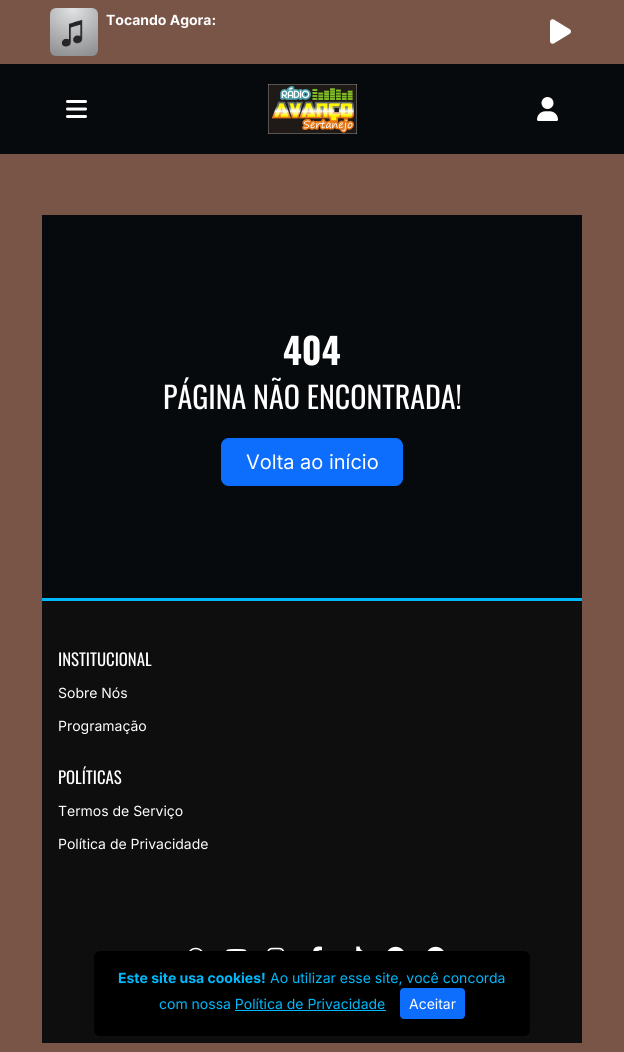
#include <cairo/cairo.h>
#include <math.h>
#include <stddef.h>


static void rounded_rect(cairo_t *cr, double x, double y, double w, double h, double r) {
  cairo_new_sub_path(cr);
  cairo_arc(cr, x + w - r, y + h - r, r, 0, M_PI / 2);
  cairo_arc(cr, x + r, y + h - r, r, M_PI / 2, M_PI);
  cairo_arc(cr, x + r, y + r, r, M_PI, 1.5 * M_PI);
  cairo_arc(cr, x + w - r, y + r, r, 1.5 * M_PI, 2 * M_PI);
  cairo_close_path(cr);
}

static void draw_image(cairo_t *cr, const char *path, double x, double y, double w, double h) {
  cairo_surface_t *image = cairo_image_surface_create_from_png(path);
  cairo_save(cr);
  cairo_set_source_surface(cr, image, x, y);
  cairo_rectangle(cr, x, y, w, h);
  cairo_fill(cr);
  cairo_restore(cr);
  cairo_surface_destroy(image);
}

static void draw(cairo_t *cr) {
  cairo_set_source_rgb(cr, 121 / 255.0, 85 / 255.0, 72 / 255.0);
  cairo_paint(cr);
  draw_image(cr, "images/1.png", 50, 8, 48, 48);
  draw_image(cr, "images/2.png", 550, 19, 21, 25);
  cairo_set_source_rgb(cr, 7 / 255.0, 10 / 255.0, 12 / 255.0);
  cairo_rectangle(cr, 0, 64, 624, 90);
  cairo_fill(cr);
  draw_image(cr, "images/3.png", 66, 100, 21, 18);
  draw_image(cr, "images/4.png", 268, 84, 89, 50);
  draw_image(cr, "images/5.png", 537, 97, 21, 24);
  cairo_rectangle(cr, 42, 215, 540, 383);
  cairo_fill(cr);
  cairo_set_source_rgb(cr, 13 / 255.0, 110 / 255.0, 253 / 255.0);
  rounded_rect(cr, 221.5, 438.5, 181, 47, 7.5);
  cairo_fill_preserve(cr);
  cairo_set_line_width(cr, 1);
  cairo_stroke(cr);
  cairo_set_source_rgb(cr, 14 / 255.0, 14 / 255.0, 14 / 255.0);
  cairo_rectangle(cr, 42, 601, 540, 442);
  cairo_fill(cr);
  cairo_set_source_rgb(cr, 0, 185 / 255.0, 253 / 255.0);
  cairo_rectangle(cr, 42, 598, 540, 3);
  cairo_fill(cr);
  draw_image(cr, "images/6.png", 189, 947, 14, 4);
  draw_image(cr, "images/7.png", 226, 949, 21, 2);
  draw_image(cr, "images/8.png", 267, 947, 17, 4);
  draw_image(cr, "images/9.png", 313, 946, 9, 5);
  draw_image(cr, "images/10.png", 356, 946, 7, 5);
  draw_image(cr, "images/11.png", 387, 946, 17, 5);
  draw_image(cr, "images/11.png", 427, 946, 17, 5);
  cairo_set_source_rgb(cr, 0, 0, 0);
  rounded_rect(cr, 94, 951, 436, 85, 6);
  cairo_fill(cr);
  cairo_set_source_rgb(cr, 13 / 255.0, 110 / 255.0, 253 / 255.0);
  rounded_rect(cr, 400.5, 988.5, 64, 30, 3.5);
  cairo_fill_preserve(cr);
  cairo_stroke(cr);
  cairo_set_source_rgb(cr, 0, 185 / 255.0, 253 / 255.0);
  cairo_rectangle(cr, 235, 1010, 151, 1);
  cairo_fill(cr);
  cairo_select_font_face(cr, "Inter", CAIRO_FONT_SLANT_NORMAL, CAIRO_FONT_WEIGHT_BOLD);
  cairo_set_font_size(cr, 14);
  cairo_set_source_rgb(cr, 1, 1, 1);
  cairo_move_to(cr, 106, 25);
  cairo_show_text(cr, "Tocando Agora:");
  cairo_select_font_face(cr, "Oswald", CAIRO_FONT_SLANT_NORMAL, CAIRO_FONT_WEIGHT_BOLD);
  cairo_set_font_size(cr, 36);
  cairo_move_to(cr, 283, 365);
  cairo_show_text(cr, "404");
  cairo_select_font_face(cr, "Oswald", CAIRO_FONT_SLANT_NORMAL, CAIRO_FONT_WEIGHT_NORMAL);
  cairo_set_font_size(cr, 30);
  cairo_move_to(cr, 163, 409);
  cairo_show_text(cr, "PÁGINA NÃO ENCONTRADA!");
  cairo_select_font_face(cr, "Inter", CAIRO_FONT_SLANT_NORMAL, CAIRO_FONT_WEIGHT_NORMAL);
  cairo_set_font_size(cr, 20);
  cairo_move_to(cr, 246, 469);
  cairo_show_text(cr, "Volta ao início");
  cairo_select_font_face(cr, "Oswald", CAIRO_FONT_SLANT_NORMAL, CAIRO_FONT_WEIGHT_NORMAL);
  cairo_set_font_size(cr, 16.75);
  cairo_move_to(cr, 58, 666);
  cairo_show_text(cr, "INSTITUCIONAL");
  cairo_select_font_face(cr, "Inter", CAIRO_FONT_SLANT_NORMAL, CAIRO_FONT_WEIGHT_NORMAL);
  cairo_set_font_size(cr, 14);
  cairo_move_to(cr, 58, 698);
  cairo_show_text(cr, "Sobre Nós");
  cairo_move_to(cr, 58, 731);
  cairo_show_text(cr, "Programação");
  cairo_select_font_face(cr, "Oswald", CAIRO_FONT_SLANT_NORMAL, CAIRO_FONT_WEIGHT_NORMAL);
  cairo_set_font_size(cr, 16.75);
  cairo_move_to(cr, 58, 784);
  cairo_show_text(cr, "POLÍTICAS");
  cairo_select_font_face(cr, "Inter", CAIRO_FONT_SLANT_NORMAL, CAIRO_FONT_WEIGHT_NORMAL);
  cairo_set_font_size(cr, 14);
  cairo_move_to(cr, 58, 816);
  cairo_show_text(cr, "Termos de Serviço");
  cairo_move_to(cr, 58, 849);
  cairo_show_text(cr, "Política de Privacidade");
  cairo_select_font_face(cr, "Inter", CAIRO_FONT_SLANT_NORMAL, CAIRO_FONT_WEIGHT_BOLD);
  cairo_set_source_rgb(cr, 0, 185 / 255.0, 253 / 255.0);
  cairo_move_to(cr, 118, 983);
  cairo_show_text(cr, "Este site usa cookies!");
  cairo_select_font_face(cr, "Inter", CAIRO_FONT_SLANT_NORMAL, CAIRO_FONT_WEIGHT_NORMAL);
  cairo_move_to(cr, 270, 983);
  cairo_show_text(cr, "Ao utilizar esse site, você concorda");
  cairo_move_to(cr, 159, 1009);
  cairo_show_text(cr, "com nossa Política de Privacidade");
  cairo_set_source_rgb(cr, 1, 1, 1);
  cairo_move_to(cr, 409, 1009);
  cairo_show_text(cr, "Aceitar");
}

int main(void) {
  cairo_surface_t *surface = cairo_image_surface_create(CAIRO_FORMAT_RGB24, 624, 1052);
  cairo_t *cr = cairo_create(surface);
  cairo_font_options_t *options = cairo_font_options_create();
  cairo_font_options_set_hint_metrics(options, CAIRO_HINT_METRICS_OFF);
  cairo_font_options_set_hint_style(options, CAIRO_HINT_STYLE_NONE);
  cairo_set_font_options(cr, options);
  cairo_set_miter_limit(cr, 4);
  draw(cr);
  cairo_surface_write_to_png(surface, "out.png");
  cairo_font_options_destroy(options);
  cairo_destroy(cr);
  cairo_surface_destroy(surface);
  return 0;
}
